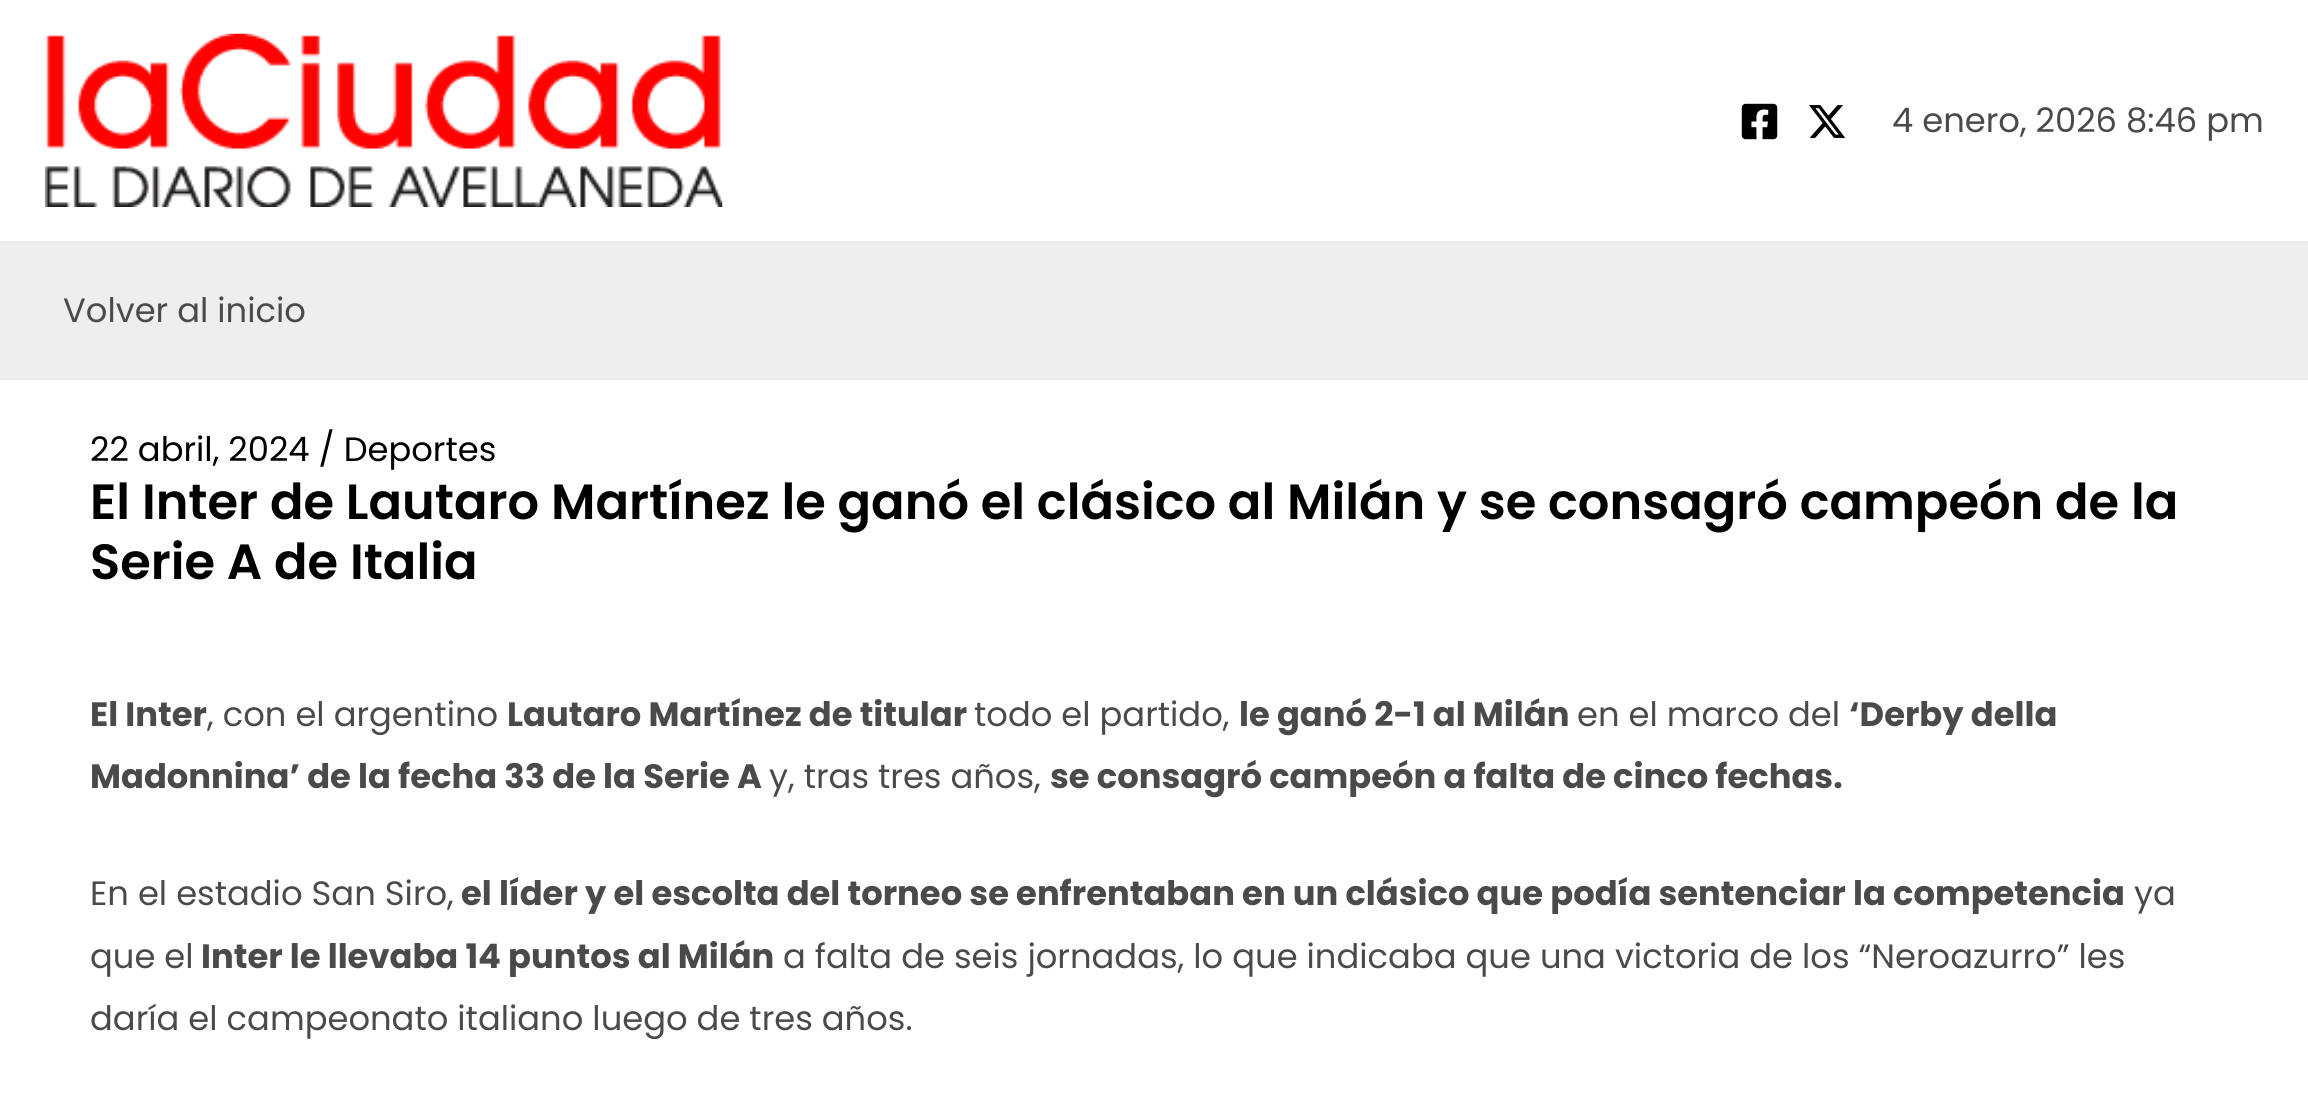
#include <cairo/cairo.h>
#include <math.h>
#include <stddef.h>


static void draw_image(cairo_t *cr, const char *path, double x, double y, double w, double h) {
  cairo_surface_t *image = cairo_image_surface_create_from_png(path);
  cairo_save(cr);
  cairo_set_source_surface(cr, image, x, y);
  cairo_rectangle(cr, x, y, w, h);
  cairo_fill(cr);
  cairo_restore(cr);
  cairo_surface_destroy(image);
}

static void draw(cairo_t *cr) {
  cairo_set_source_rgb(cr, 1, 1, 1);
  cairo_paint(cr);
  cairo_set_source_rgb(cr, 234 / 255.0, 234 / 255.0, 234 / 255.0);
  cairo_rectangle(cr, 0, 241, 2308, 2);
  cairo_fill(cr);
  draw_image(cr, "images/1.png", 45, 33, 678, 174);
  draw_image(cr, "images/2.png", 1741, 103, 37, 37);
  draw_image(cr, "images/3.png", 1809, 105, 37, 33);
  cairo_set_source_rgb(cr, 238 / 255.0, 238 / 255.0, 238 / 255.0);
  cairo_rectangle(cr, 0, 243, 2308, 135);
  cairo_fill(cr);
  cairo_set_source_rgb(cr, 234 / 255.0, 234 / 255.0, 234 / 255.0);
  cairo_rectangle(cr, 0, 378, 2308, 2);
  cairo_fill(cr);
  cairo_select_font_face(cr, "Poppins", CAIRO_FONT_SLANT_NORMAL, CAIRO_FONT_WEIGHT_NORMAL);
  cairo_set_font_size(cr, 33.75);
  cairo_set_source_rgb(cr, 74 / 255.0, 74 / 255.0, 74 / 255.0);
  cairo_move_to(cr, 1892, 132);
  cairo_show_text(cr, "4 enero, 2026 8:46 pm");
  cairo_move_to(cr, 63, 322);
  cairo_show_text(cr, "Volver al inicio");
  cairo_set_source_rgb(cr, 0, 0, 0);
  cairo_move_to(cr, 90, 461);
  cairo_show_text(cr, "22 abril, 2024 / Deportes");
  cairo_select_font_face(cr, "Poppins SemiBold", CAIRO_FONT_SLANT_NORMAL, CAIRO_FONT_WEIGHT_NORMAL);
  cairo_set_font_size(cr, 49.5);
  cairo_move_to(cr, 90, 519);
  cairo_show_text(cr, "El Inter de Lautaro Martínez le ganó el clásico al Milán y se consagró campeón de la");
  cairo_move_to(cr, 90, 579);
  cairo_show_text(cr, "Serie A de Italia");
  cairo_select_font_face(cr, "Poppins", CAIRO_FONT_SLANT_NORMAL, CAIRO_FONT_WEIGHT_BOLD);
  cairo_set_font_size(cr, 33.75);
  cairo_set_source_rgb(cr, 74 / 255.0, 74 / 255.0, 74 / 255.0);
  cairo_move_to(cr, 90, 726);
  cairo_show_text(cr, "El Inter");
  cairo_select_font_face(cr, "Poppins", CAIRO_FONT_SLANT_NORMAL, CAIRO_FONT_WEIGHT_NORMAL);
  cairo_move_to(cr, 207, 726);
  cairo_show_text(cr, ", con el argentino");
  cairo_select_font_face(cr, "Poppins", CAIRO_FONT_SLANT_NORMAL, CAIRO_FONT_WEIGHT_BOLD);
  cairo_move_to(cr, 507, 726);
  cairo_show_text(cr, "Lautaro Martínez de titular");
  cairo_select_font_face(cr, "Poppins", CAIRO_FONT_SLANT_NORMAL, CAIRO_FONT_WEIGHT_NORMAL);
  cairo_move_to(cr, 974, 726);
  cairo_show_text(cr, "todo el partido,");
  cairo_select_font_face(cr, "Poppins", CAIRO_FONT_SLANT_NORMAL, CAIRO_FONT_WEIGHT_BOLD);
  cairo_move_to(cr, 1239, 726);
  cairo_show_text(cr, "le ganó 2-1 al Milán");
  cairo_select_font_face(cr, "Poppins", CAIRO_FONT_SLANT_NORMAL, CAIRO_FONT_WEIGHT_NORMAL);
  cairo_move_to(cr, 1577, 726);
  cairo_show_text(cr, "en el marco del");
  cairo_select_font_face(cr, "Poppins", CAIRO_FONT_SLANT_NORMAL, CAIRO_FONT_WEIGHT_BOLD);
  cairo_move_to(cr, 1849, 726);
  cairo_show_text(cr, "‘Derby della");
  cairo_move_to(cr, 90, 788);
  cairo_show_text(cr, "Madonnina’ de la fecha 33 de la Serie A");
  cairo_select_font_face(cr, "Poppins", CAIRO_FONT_SLANT_NORMAL, CAIRO_FONT_WEIGHT_NORMAL);
  cairo_move_to(cr, 769, 788);
  cairo_show_text(cr, "y, tras tres años,");
  cairo_select_font_face(cr, "Poppins", CAIRO_FONT_SLANT_NORMAL, CAIRO_FONT_WEIGHT_BOLD);
  cairo_move_to(cr, 1050, 788);
  cairo_show_text(cr, "se consagró campeón a falta de cinco fechas.");
  cairo_select_font_face(cr, "Poppins", CAIRO_FONT_SLANT_NORMAL, CAIRO_FONT_WEIGHT_NORMAL);
  cairo_move_to(cr, 90, 905);
  cairo_show_text(cr, "En el estadio San Siro,");
  cairo_select_font_face(cr, "Poppins", CAIRO_FONT_SLANT_NORMAL, CAIRO_FONT_WEIGHT_BOLD);
  cairo_move_to(cr, 461, 905);
  cairo_show_text(cr, "el líder y el escolta del torneo se enfrentaban en un clásico que podía sentenciar la competencia");
  cairo_select_font_face(cr, "Poppins", CAIRO_FONT_SLANT_NORMAL, CAIRO_FONT_WEIGHT_NORMAL);
  cairo_move_to(cr, 2134, 905);
  cairo_show_text(cr, "ya");
  cairo_move_to(cr, 90, 968);
  cairo_show_text(cr, "que el");
  cairo_select_font_face(cr, "Poppins", CAIRO_FONT_SLANT_NORMAL, CAIRO_FONT_WEIGHT_BOLD);
  cairo_move_to(cr, 201, 968);
  cairo_show_text(cr, "Inter le llevaba 14 puntos al Milán");
  cairo_select_font_face(cr, "Poppins", CAIRO_FONT_SLANT_NORMAL, CAIRO_FONT_WEIGHT_NORMAL);
  cairo_move_to(cr, 783, 968);
  cairo_show_text(cr, "a falta de seis jornadas, lo que indicaba que una victoria de los “Neroazurro” les");
  cairo_move_to(cr, 90, 1030);
  cairo_show_text(cr, "daría el campeonato italiano luego de tres años.");
}

int main(void) {
  cairo_surface_t *surface = cairo_image_surface_create(CAIRO_FORMAT_RGB24, 2308, 1098);
  cairo_t *cr = cairo_create(surface);
  cairo_font_options_t *options = cairo_font_options_create();
  cairo_font_options_set_hint_metrics(options, CAIRO_HINT_METRICS_OFF);
  cairo_font_options_set_hint_style(options, CAIRO_HINT_STYLE_NONE);
  cairo_set_font_options(cr, options);
  cairo_set_miter_limit(cr, 4);
  draw(cr);
  cairo_surface_write_to_png(surface, "out.png");
  cairo_font_options_destroy(options);
  cairo_destroy(cr);
  cairo_surface_destroy(surface);
  return 0;
}
